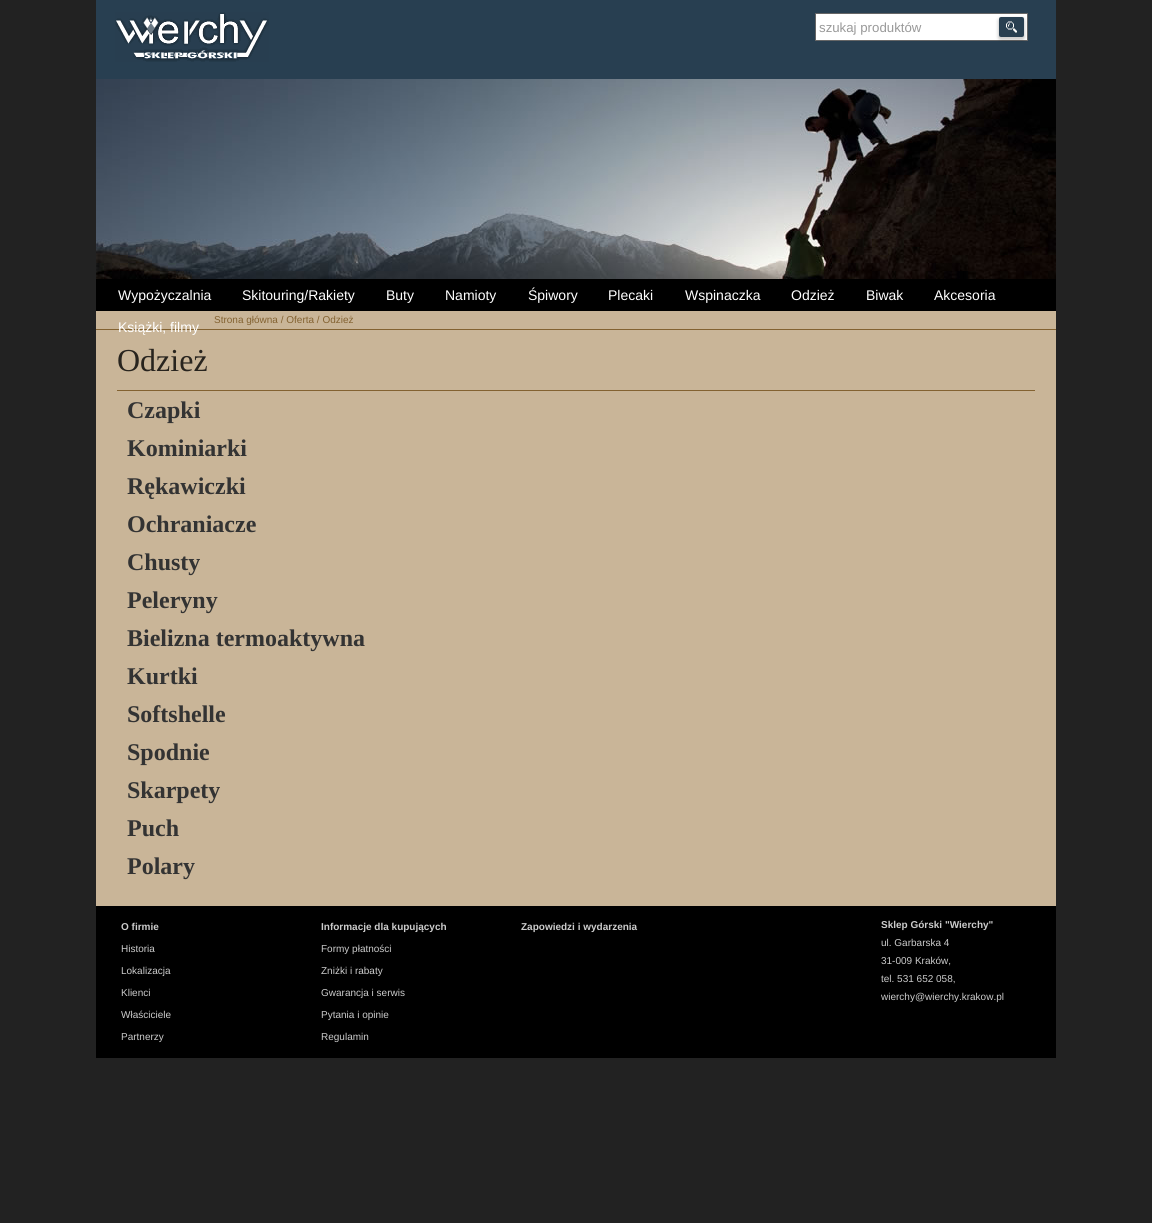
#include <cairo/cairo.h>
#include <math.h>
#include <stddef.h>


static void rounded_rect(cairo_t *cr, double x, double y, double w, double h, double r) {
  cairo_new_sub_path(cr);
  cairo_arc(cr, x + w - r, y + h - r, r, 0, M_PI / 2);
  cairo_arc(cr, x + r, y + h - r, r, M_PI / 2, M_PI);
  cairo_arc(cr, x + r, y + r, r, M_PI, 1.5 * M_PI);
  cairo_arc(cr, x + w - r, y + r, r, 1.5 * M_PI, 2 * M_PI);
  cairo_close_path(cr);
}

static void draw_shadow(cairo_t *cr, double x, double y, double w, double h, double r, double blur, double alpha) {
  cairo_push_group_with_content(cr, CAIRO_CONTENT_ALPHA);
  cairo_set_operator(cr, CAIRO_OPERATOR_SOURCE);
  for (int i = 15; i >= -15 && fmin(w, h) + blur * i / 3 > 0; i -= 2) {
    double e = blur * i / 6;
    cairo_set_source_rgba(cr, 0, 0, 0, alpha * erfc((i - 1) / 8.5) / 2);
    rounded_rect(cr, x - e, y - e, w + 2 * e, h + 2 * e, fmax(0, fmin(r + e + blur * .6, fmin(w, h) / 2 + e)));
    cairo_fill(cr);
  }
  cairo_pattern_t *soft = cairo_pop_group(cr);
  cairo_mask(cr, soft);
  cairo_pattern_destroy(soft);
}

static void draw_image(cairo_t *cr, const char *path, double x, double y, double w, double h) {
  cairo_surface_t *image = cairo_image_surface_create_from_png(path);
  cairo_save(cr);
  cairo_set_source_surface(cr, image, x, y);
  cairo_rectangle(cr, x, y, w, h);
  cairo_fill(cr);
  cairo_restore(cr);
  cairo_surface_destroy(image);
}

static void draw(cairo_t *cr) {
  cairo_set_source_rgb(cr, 34 / 255.0, 34 / 255.0, 34 / 255.0);
  cairo_paint(cr);
  cairo_set_source_rgb(cr, 40 / 255.0, 63 / 255.0, 81 / 255.0);
  cairo_rectangle(cr, 96, 0, 960, 79);
  cairo_fill(cr);
  draw_image(cr, "images/1.png", 115, 12, 154, 50);
  cairo_set_source_rgb(cr, 1, 1, 1);
  cairo_rectangle(cr, 815.5, 13.5, 212, 27);
  cairo_fill_preserve(cr);
  cairo_set_source_rgb(cr, 102 / 255.0, 102 / 255.0, 102 / 255.0);
  cairo_set_line_width(cr, 1);
  cairo_stroke(cr);
  cairo_set_source_rgb(cr, 0, 0, 0);
  draw_shadow(cr, 998, 18, 27, 22, 3, 1.5, 0.2);
  draw_image(cr, "images/2.png", 999, 17, 25, 20);
  draw_image(cr, "images/3.png", 96, 79, 960, 200);
  cairo_set_source_rgb(cr, 0, 0, 0);
  cairo_rectangle(cr, 96, 279, 960, 32);
  cairo_fill(cr);
  cairo_set_source_rgb(cr, 201 / 255.0, 181 / 255.0, 152 / 255.0);
  cairo_rectangle(cr, 96, 311, 960, 18);
  cairo_fill(cr);
  cairo_set_source_rgb(cr, 131 / 255.0, 98 / 255.0, 49 / 255.0);
  cairo_rectangle(cr, 96, 329, 960, 1);
  cairo_fill(cr);
  cairo_set_source_rgb(cr, 201 / 255.0, 181 / 255.0, 152 / 255.0);
  cairo_rectangle(cr, 96, 330, 960, 576);
  cairo_fill(cr);
  cairo_set_source_rgb(cr, 131 / 255.0, 98 / 255.0, 49 / 255.0);
  cairo_rectangle(cr, 117, 390, 918, 1);
  cairo_fill(cr);
  cairo_set_source_rgb(cr, 0, 0, 0);
  cairo_rectangle(cr, 96, 906, 960, 152);
  cairo_fill(cr);
  cairo_select_font_face(cr, "Liberation Sans", CAIRO_FONT_SLANT_NORMAL, CAIRO_FONT_WEIGHT_NORMAL);
  cairo_set_font_size(cr, 13.25);
  cairo_set_source_rgb(cr, 153 / 255.0, 153 / 255.0, 153 / 255.0);
  cairo_move_to(cr, 819, 32);
  cairo_show_text(cr, "szukaj produktów");
  cairo_set_font_size(cr, 14);
  cairo_set_source_rgb(cr, 1, 1, 1);
  cairo_move_to(cr, 118, 300);
  cairo_show_text(cr, "Wypożyczalnia");
  cairo_move_to(cr, 242, 300);
  cairo_show_text(cr, "Skitouring/Rakiety");
  cairo_move_to(cr, 386, 300);
  cairo_show_text(cr, "Buty");
  cairo_move_to(cr, 445, 300);
  cairo_show_text(cr, "Namioty");
  cairo_move_to(cr, 528, 300);
  cairo_show_text(cr, "Śpiwory");
  cairo_move_to(cr, 608, 300);
  cairo_show_text(cr, "Plecaki");
  cairo_move_to(cr, 685, 300);
  cairo_show_text(cr, "Wspinaczka");
  cairo_move_to(cr, 791, 300);
  cairo_show_text(cr, "Odzież");
  cairo_move_to(cr, 866, 300);
  cairo_show_text(cr, "Biwak");
  cairo_move_to(cr, 934, 300);
  cairo_show_text(cr, "Akcesoria");
  cairo_move_to(cr, 118, 332);
  cairo_show_text(cr, "Książki, filmy");
  cairo_set_font_size(cr, 10);
  cairo_set_source_rgb(cr, 131 / 255.0, 98 / 255.0, 49 / 255.0);
  cairo_move_to(cr, 214, 323);
  cairo_show_text(cr, "Strona główna / Oferta / Odzież");
  cairo_select_font_face(cr, "Liberation Serif", CAIRO_FONT_SLANT_NORMAL, CAIRO_FONT_WEIGHT_NORMAL);
  cairo_set_font_size(cr, 32);
  cairo_set_source_rgb(cr, 40 / 255.0, 36 / 255.0, 30 / 255.0);
  cairo_move_to(cr, 117, 371);
  cairo_show_text(cr, "Odzież");
  cairo_select_font_face(cr, "Liberation Serif", CAIRO_FONT_SLANT_NORMAL, CAIRO_FONT_WEIGHT_BOLD);
  cairo_set_font_size(cr, 24);
  cairo_set_source_rgb(cr, 51 / 255.0, 51 / 255.0, 51 / 255.0);
  cairo_move_to(cr, 127, 418);
  cairo_show_text(cr, "Czapki");
  cairo_move_to(cr, 127, 456);
  cairo_show_text(cr, "Kominiarki");
  cairo_move_to(cr, 127, 494);
  cairo_show_text(cr, "Rękawiczki");
  cairo_move_to(cr, 127, 532);
  cairo_show_text(cr, "Ochraniacze");
  cairo_move_to(cr, 127, 570);
  cairo_show_text(cr, "Chusty");
  cairo_move_to(cr, 127, 608);
  cairo_show_text(cr, "Peleryny");
  cairo_move_to(cr, 127, 646);
  cairo_show_text(cr, "Bielizna termoaktywna");
  cairo_move_to(cr, 127, 684);
  cairo_show_text(cr, "Kurtki");
  cairo_move_to(cr, 127, 722);
  cairo_show_text(cr, "Softshelle");
  cairo_move_to(cr, 127, 760);
  cairo_show_text(cr, "Spodnie");
  cairo_move_to(cr, 127, 798);
  cairo_show_text(cr, "Skarpety");
  cairo_move_to(cr, 127, 836);
  cairo_show_text(cr, "Puch");
  cairo_move_to(cr, 127, 874);
  cairo_show_text(cr, "Polary");
  cairo_select_font_face(cr, "Liberation Sans", CAIRO_FONT_SLANT_NORMAL, CAIRO_FONT_WEIGHT_BOLD);
  cairo_set_font_size(cr, 10);
  cairo_set_source_rgb(cr, 204 / 255.0, 204 / 255.0, 204 / 255.0);
  cairo_move_to(cr, 121, 930);
  cairo_show_text(cr, "O firmie");
  cairo_select_font_face(cr, "Liberation Sans", CAIRO_FONT_SLANT_NORMAL, CAIRO_FONT_WEIGHT_NORMAL);
  cairo_move_to(cr, 121, 952);
  cairo_show_text(cr, "Historia");
  cairo_move_to(cr, 121, 974);
  cairo_show_text(cr, "Lokalizacja");
  cairo_move_to(cr, 121, 996);
  cairo_show_text(cr, "Klienci");
  cairo_move_to(cr, 121, 1018);
  cairo_show_text(cr, "Właściciele");
  cairo_move_to(cr, 121, 1040);
  cairo_show_text(cr, "Partnerzy");
  cairo_select_font_face(cr, "Liberation Sans", CAIRO_FONT_SLANT_NORMAL, CAIRO_FONT_WEIGHT_BOLD);
  cairo_move_to(cr, 321, 930);
  cairo_show_text(cr, "Informacje dla kupujących");
  cairo_select_font_face(cr, "Liberation Sans", CAIRO_FONT_SLANT_NORMAL, CAIRO_FONT_WEIGHT_NORMAL);
  cairo_move_to(cr, 321, 952);
  cairo_show_text(cr, "Formy płatności");
  cairo_move_to(cr, 321, 974);
  cairo_show_text(cr, "Zniżki i rabaty");
  cairo_move_to(cr, 321, 996);
  cairo_show_text(cr, "Gwarancja i serwis");
  cairo_move_to(cr, 321, 1018);
  cairo_show_text(cr, "Pytania i opinie");
  cairo_move_to(cr, 321, 1040);
  cairo_show_text(cr, "Regulamin");
  cairo_select_font_face(cr, "Liberation Sans", CAIRO_FONT_SLANT_NORMAL, CAIRO_FONT_WEIGHT_BOLD);
  cairo_move_to(cr, 521, 930);
  cairo_show_text(cr, "Zapowiedzi i wydarzenia");
  cairo_move_to(cr, 881, 928);
  cairo_show_text(cr, "Sklep Górski \"Wierchy\"");
  cairo_select_font_face(cr, "Liberation Sans", CAIRO_FONT_SLANT_NORMAL, CAIRO_FONT_WEIGHT_NORMAL);
  cairo_move_to(cr, 881, 946);
  cairo_show_text(cr, "ul. Garbarska 4");
  cairo_move_to(cr, 881, 964);
  cairo_show_text(cr, "31-009 Kraków,");
  cairo_move_to(cr, 881, 982);
  cairo_show_text(cr, "tel. 531 652 058,");
  cairo_move_to(cr, 881, 1000);
  cairo_show_text(cr, "wierchy@wierchy.krakow.pl");
}

int main(void) {
  cairo_surface_t *surface = cairo_image_surface_create(CAIRO_FORMAT_RGB24, 1152, 1223);
  cairo_t *cr = cairo_create(surface);
  cairo_font_options_t *options = cairo_font_options_create();
  cairo_font_options_set_hint_metrics(options, CAIRO_HINT_METRICS_OFF);
  cairo_font_options_set_hint_style(options, CAIRO_HINT_STYLE_NONE);
  cairo_set_font_options(cr, options);
  cairo_set_miter_limit(cr, 4);
  draw(cr);
  cairo_surface_write_to_png(surface, "out.png");
  cairo_font_options_destroy(options);
  cairo_destroy(cr);
  cairo_surface_destroy(surface);
  return 0;
}
